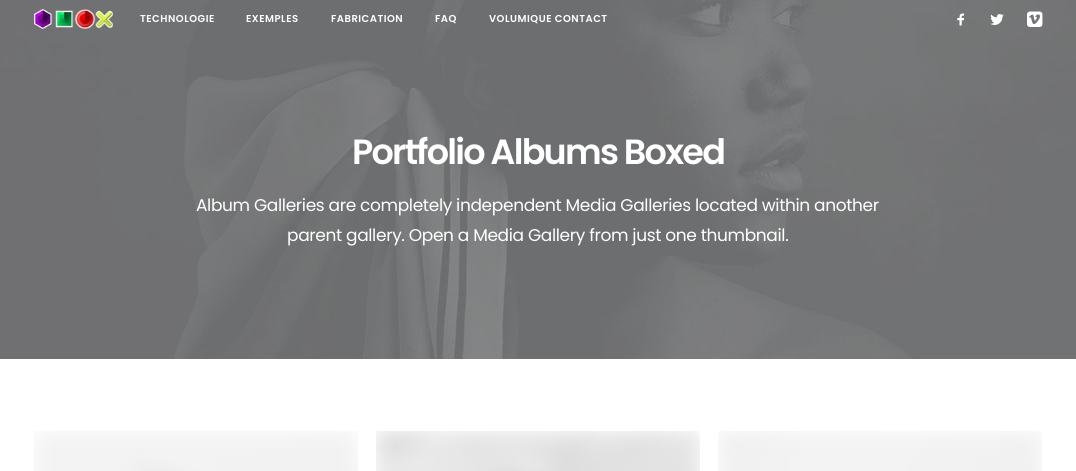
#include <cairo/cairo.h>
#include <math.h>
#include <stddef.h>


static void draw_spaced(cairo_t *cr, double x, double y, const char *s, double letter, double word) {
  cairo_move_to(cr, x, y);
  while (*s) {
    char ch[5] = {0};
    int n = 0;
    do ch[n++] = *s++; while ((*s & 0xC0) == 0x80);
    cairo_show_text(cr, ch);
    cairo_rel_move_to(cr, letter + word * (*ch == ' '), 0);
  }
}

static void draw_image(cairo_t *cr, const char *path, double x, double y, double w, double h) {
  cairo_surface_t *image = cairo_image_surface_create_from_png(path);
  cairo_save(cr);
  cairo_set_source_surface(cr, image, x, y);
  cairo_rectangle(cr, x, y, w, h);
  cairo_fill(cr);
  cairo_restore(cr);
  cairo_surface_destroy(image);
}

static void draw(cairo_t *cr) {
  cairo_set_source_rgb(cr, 1, 1, 1);
  cairo_paint(cr);
  draw_image(cr, "images/5.png", 0, 0, 1076, 359);
  draw_image(cr, "images/1.png", 34, 9, 79, 20);
  draw_image(cr, "images/2.png", 957, 13, 7, 13);
  draw_image(cr, "images/3.png", 990, 14, 14, 11);
  draw_image(cr, "images/4.png", 1027, 11, 16, 16);
  draw_image(cr, "images/6.png", 34, 431, 324, 40);
  draw_image(cr, "images/7.png", 376, 431, 324, 40);
  draw_image(cr, "images/8.png", 718, 431, 324, 40);
  cairo_select_font_face(cr, "Poppins SemiBold", CAIRO_FONT_SLANT_NORMAL, CAIRO_FONT_WEIGHT_NORMAL);
  cairo_set_font_size(cr, 10);
  cairo_set_source_rgb(cr, 1, 1, 1);
  draw_spaced(cr, 140, 22, "TECHNOLOGIE", 0.5, 0);
  draw_spaced(cr, 246, 22, "EXEMPLES", 0.5, 0);
  draw_spaced(cr, 331, 22, "FABRICATION", 0.5, 0);
  draw_spaced(cr, 435, 22, "FAQ", 0.5, 0);
  draw_spaced(cr, 489, 22, "VOLUMIQUE CONTACT", 0.5, 0);
  cairo_set_font_size(cr, 35);
  draw_spaced(cr, 352, 164, "Portfolio Albums Boxed", -1.75, 0);
  cairo_select_font_face(cr, "Poppins", CAIRO_FONT_SLANT_NORMAL, CAIRO_FONT_WEIGHT_NORMAL);
  cairo_set_font_size(cr, 17);
  draw_spaced(cr, 196, 211, "Album Galleries are completely independent Media Galleries located within another", -0.35, 0);
  draw_spaced(cr, 287, 241, "parent gallery. Open a Media Gallery from just one thumbnail.", -0.35, 0);
}

int main(void) {
  cairo_surface_t *surface = cairo_image_surface_create(CAIRO_FORMAT_RGB24, 1076, 471);
  cairo_t *cr = cairo_create(surface);
  cairo_font_options_t *options = cairo_font_options_create();
  cairo_font_options_set_hint_metrics(options, CAIRO_HINT_METRICS_OFF);
  cairo_font_options_set_hint_style(options, CAIRO_HINT_STYLE_NONE);
  cairo_set_font_options(cr, options);
  cairo_set_miter_limit(cr, 4);
  draw(cr);
  cairo_surface_write_to_png(surface, "out.png");
  cairo_font_options_destroy(options);
  cairo_destroy(cr);
  cairo_surface_destroy(surface);
  return 0;
}
